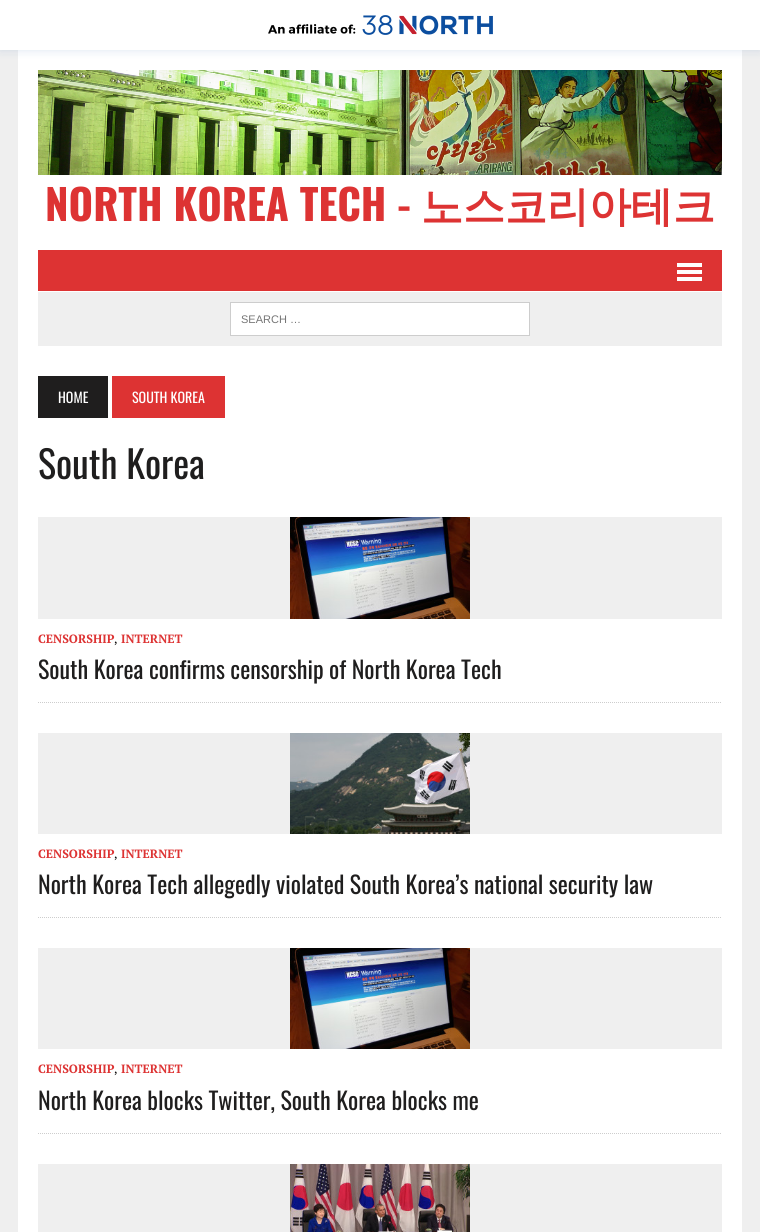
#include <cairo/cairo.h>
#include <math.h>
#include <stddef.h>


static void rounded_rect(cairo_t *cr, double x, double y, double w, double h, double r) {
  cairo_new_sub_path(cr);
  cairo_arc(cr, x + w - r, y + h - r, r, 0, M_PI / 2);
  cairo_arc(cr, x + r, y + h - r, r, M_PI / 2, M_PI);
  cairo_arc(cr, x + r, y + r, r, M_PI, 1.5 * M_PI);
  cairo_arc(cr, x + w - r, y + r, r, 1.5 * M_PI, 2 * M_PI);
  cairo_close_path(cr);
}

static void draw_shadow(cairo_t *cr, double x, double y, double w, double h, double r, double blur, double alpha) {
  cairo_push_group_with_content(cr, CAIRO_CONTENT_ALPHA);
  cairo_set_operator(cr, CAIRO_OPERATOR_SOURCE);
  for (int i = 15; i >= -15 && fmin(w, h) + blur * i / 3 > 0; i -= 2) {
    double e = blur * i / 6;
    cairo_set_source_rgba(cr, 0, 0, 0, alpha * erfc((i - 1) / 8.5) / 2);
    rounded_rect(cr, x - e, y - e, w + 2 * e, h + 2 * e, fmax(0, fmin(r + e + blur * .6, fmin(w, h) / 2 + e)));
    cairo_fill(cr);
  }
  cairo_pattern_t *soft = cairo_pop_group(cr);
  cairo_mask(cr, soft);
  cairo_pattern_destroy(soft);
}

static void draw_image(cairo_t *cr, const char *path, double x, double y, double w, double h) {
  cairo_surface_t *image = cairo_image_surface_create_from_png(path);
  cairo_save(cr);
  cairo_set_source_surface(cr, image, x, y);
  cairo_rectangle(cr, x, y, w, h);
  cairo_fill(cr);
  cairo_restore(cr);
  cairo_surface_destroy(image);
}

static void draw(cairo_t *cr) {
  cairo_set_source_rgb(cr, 239 / 255.0, 239 / 255.0, 239 / 255.0);
  cairo_paint(cr);
  cairo_set_source_rgb(cr, 1, 1, 1);
  cairo_rectangle(cr, 18, 50, 724, 1182);
  cairo_fill(cr);
  cairo_set_source_rgb(cr, 15 / 255.0, 78 / 255.0, 160 / 255.0);
  draw_shadow(cr, 0, 0, 760, 50, 0, 5, 0.15);
  cairo_set_source_rgb(cr, 1, 1, 1);
  cairo_rectangle(cr, 0, 0, 760, 50);
  cairo_fill(cr);
  draw_image(cr, "images/1.png", 268, 15, 225, 20);
  draw_image(cr, "images/2.png", 38, 70, 684, 105);
  cairo_set_source_rgb(cr, 221 / 255.0, 51 / 255.0, 51 / 255.0);
  cairo_rectangle(cr, 38, 250, 684, 41);
  cairo_fill(cr);
  cairo_set_source_rgb(cr, 1, 1, 1);
  cairo_rectangle(cr, 677, 263, 25, 4);
  cairo_fill(cr);
  cairo_rectangle(cr, 677, 270, 25, 4);
  cairo_fill(cr);
  cairo_rectangle(cr, 677, 277, 25, 4);
  cairo_fill(cr);
  cairo_set_source_rgb(cr, 239 / 255.0, 239 / 255.0, 239 / 255.0);
  cairo_rectangle(cr, 38, 292, 684, 54);
  cairo_fill(cr);
  cairo_set_source_rgb(cr, 1, 1, 1);
  cairo_rectangle(cr, 230.5, 302.5, 299, 33);
  cairo_fill_preserve(cr);
  cairo_set_source_rgb(cr, 205 / 255.0, 205 / 255.0, 205 / 255.0);
  cairo_set_line_width(cr, 1);
  cairo_stroke(cr);
  cairo_set_source_rgb(cr, 31 / 255.0, 30 / 255.0, 30 / 255.0);
  cairo_rectangle(cr, 38, 376, 70, 42);
  cairo_fill(cr);
  cairo_set_source_rgb(cr, 221 / 255.0, 51 / 255.0, 51 / 255.0);
  cairo_rectangle(cr, 112, 376, 113, 42);
  cairo_fill(cr);
  cairo_set_source_rgb(cr, 239 / 255.0, 239 / 255.0, 239 / 255.0);
  cairo_rectangle(cr, 38, 517, 684, 102);
  cairo_fill(cr);
  draw_image(cr, "images/3.png", 290, 517, 180, 102);
  cairo_new_path(cr);
  cairo_move_to(cr, 38, 702.5);
  cairo_line_to(cr, 722, 702.5);
  cairo_set_source_rgb(cr, 205 / 255.0, 205 / 255.0, 205 / 255.0);
  cairo_set_dash(cr, (double[]){1, 1}, 2, 0);
  cairo_stroke(cr);
  cairo_set_source_rgb(cr, 239 / 255.0, 239 / 255.0, 239 / 255.0);
  cairo_rectangle(cr, 38, 733, 684, 101);
  cairo_fill(cr);
  draw_image(cr, "images/4.png", 290, 733, 180, 101);
  cairo_new_path(cr);
  cairo_move_to(cr, 38, 917.5);
  cairo_line_to(cr, 722, 917.5);
  cairo_set_source_rgb(cr, 205 / 255.0, 205 / 255.0, 205 / 255.0);
  cairo_stroke(cr);
  cairo_set_source_rgb(cr, 239 / 255.0, 239 / 255.0, 239 / 255.0);
  cairo_rectangle(cr, 38, 948, 684, 101);
  cairo_fill(cr);
  draw_image(cr, "images/5.png", 290, 948, 180, 101);
  cairo_new_path(cr);
  cairo_move_to(cr, 38, 1133.5);
  cairo_line_to(cr, 722, 1133.5);
  cairo_set_source_rgb(cr, 205 / 255.0, 205 / 255.0, 205 / 255.0);
  cairo_stroke(cr);
  cairo_set_source_rgb(cr, 239 / 255.0, 239 / 255.0, 239 / 255.0);
  cairo_rectangle(cr, 38, 1164, 684, 68);
  cairo_fill(cr);
  draw_image(cr, "images/6.png", 290, 1164, 180, 68);
  cairo_select_font_face(cr, "Oswald", CAIRO_FONT_SLANT_NORMAL, CAIRO_FONT_WEIGHT_BOLD);
  cairo_set_font_size(cr, 42);
  cairo_set_source_rgb(cr, 221 / 255.0, 51 / 255.0, 51 / 255.0);
  cairo_move_to(cr, 45, 221);
  cairo_show_text(cr, "NORTH KOREA TECH -");
  cairo_select_font_face(cr, "WenQuanYi Zen Hei", CAIRO_FONT_SLANT_NORMAL, CAIRO_FONT_WEIGHT_BOLD);
  cairo_move_to(cr, 421, 221);
  cairo_show_text(cr, "노스코리아테크");
  cairo_select_font_face(cr, "Liberation Sans", CAIRO_FONT_SLANT_NORMAL, CAIRO_FONT_WEIGHT_NORMAL);
  cairo_set_font_size(cr, 11);
  cairo_set_source_rgb(cr, 117 / 255.0, 117 / 255.0, 117 / 255.0);
  cairo_move_to(cr, 241, 323);
  cairo_show_text(cr, "SEARCH …");
  cairo_select_font_face(cr, "Oswald", CAIRO_FONT_SLANT_NORMAL, CAIRO_FONT_WEIGHT_NORMAL);
  cairo_set_font_size(cr, 14);
  cairo_set_source_rgb(cr, 1, 1, 1);
  cairo_move_to(cr, 58, 403);
  cairo_show_text(cr, "HOME");
  cairo_move_to(cr, 132, 403);
  cairo_show_text(cr, "SOUTH KOREA");
  cairo_set_font_size(cr, 38);
  cairo_set_source_rgb(cr, 31 / 255.0, 30 / 255.0, 30 / 255.0);
  cairo_move_to(cr, 38, 479);
  cairo_show_text(cr, "South Korea");
  cairo_select_font_face(cr, "PT Serif", CAIRO_FONT_SLANT_NORMAL, CAIRO_FONT_WEIGHT_BOLD);
  cairo_set_font_size(cr, 12);
  cairo_set_source_rgb(cr, 221 / 255.0, 51 / 255.0, 51 / 255.0);
  cairo_move_to(cr, 38, 643);
  cairo_show_text(cr, "CENSORSHIP");
  cairo_select_font_face(cr, "PT Serif", CAIRO_FONT_SLANT_NORMAL, CAIRO_FONT_WEIGHT_NORMAL);
  cairo_set_source_rgb(cr, 0, 0, 0);
  cairo_move_to(cr, 114, 643);
  cairo_show_text(cr, ",");
  cairo_select_font_face(cr, "PT Serif", CAIRO_FONT_SLANT_NORMAL, CAIRO_FONT_WEIGHT_BOLD);
  cairo_set_source_rgb(cr, 221 / 255.0, 51 / 255.0, 51 / 255.0);
  cairo_move_to(cr, 121, 643);
  cairo_show_text(cr, "INTERNET");
  cairo_select_font_face(cr, "Oswald", CAIRO_FONT_SLANT_NORMAL, CAIRO_FONT_WEIGHT_NORMAL);
  cairo_set_font_size(cr, 24);
  cairo_set_source_rgb(cr, 31 / 255.0, 30 / 255.0, 30 / 255.0);
  cairo_move_to(cr, 38, 679);
  cairo_show_text(cr, "South Korea confirms censorship of North Korea Tech");
  cairo_select_font_face(cr, "PT Serif", CAIRO_FONT_SLANT_NORMAL, CAIRO_FONT_WEIGHT_BOLD);
  cairo_set_font_size(cr, 12);
  cairo_set_source_rgb(cr, 221 / 255.0, 51 / 255.0, 51 / 255.0);
  cairo_move_to(cr, 38, 858);
  cairo_show_text(cr, "CENSORSHIP");
  cairo_select_font_face(cr, "PT Serif", CAIRO_FONT_SLANT_NORMAL, CAIRO_FONT_WEIGHT_NORMAL);
  cairo_set_source_rgb(cr, 0, 0, 0);
  cairo_move_to(cr, 114, 858);
  cairo_show_text(cr, ",");
  cairo_select_font_face(cr, "PT Serif", CAIRO_FONT_SLANT_NORMAL, CAIRO_FONT_WEIGHT_BOLD);
  cairo_set_source_rgb(cr, 221 / 255.0, 51 / 255.0, 51 / 255.0);
  cairo_move_to(cr, 121, 858);
  cairo_show_text(cr, "INTERNET");
  cairo_select_font_face(cr, "Oswald", CAIRO_FONT_SLANT_NORMAL, CAIRO_FONT_WEIGHT_NORMAL);
  cairo_set_font_size(cr, 24);
  cairo_set_source_rgb(cr, 31 / 255.0, 30 / 255.0, 30 / 255.0);
  cairo_move_to(cr, 38, 894);
  cairo_show_text(cr, "North Korea Tech allegedly violated South Korea’s national security law");
  cairo_select_font_face(cr, "PT Serif", CAIRO_FONT_SLANT_NORMAL, CAIRO_FONT_WEIGHT_BOLD);
  cairo_set_font_size(cr, 12);
  cairo_set_source_rgb(cr, 221 / 255.0, 51 / 255.0, 51 / 255.0);
  cairo_move_to(cr, 38, 1073);
  cairo_show_text(cr, "CENSORSHIP");
  cairo_select_font_face(cr, "PT Serif", CAIRO_FONT_SLANT_NORMAL, CAIRO_FONT_WEIGHT_NORMAL);
  cairo_set_source_rgb(cr, 0, 0, 0);
  cairo_move_to(cr, 114, 1073);
  cairo_show_text(cr, ",");
  cairo_select_font_face(cr, "PT Serif", CAIRO_FONT_SLANT_NORMAL, CAIRO_FONT_WEIGHT_BOLD);
  cairo_set_source_rgb(cr, 221 / 255.0, 51 / 255.0, 51 / 255.0);
  cairo_move_to(cr, 121, 1073);
  cairo_show_text(cr, "INTERNET");
  cairo_select_font_face(cr, "Oswald", CAIRO_FONT_SLANT_NORMAL, CAIRO_FONT_WEIGHT_NORMAL);
  cairo_set_font_size(cr, 24);
  cairo_set_source_rgb(cr, 31 / 255.0, 30 / 255.0, 30 / 255.0);
  cairo_move_to(cr, 38, 1110);
  cairo_show_text(cr, "North Korea blocks Twitter, South Korea blocks me");
}

int main(void) {
  cairo_surface_t *surface = cairo_image_surface_create(CAIRO_FORMAT_RGB24, 760, 1232);
  cairo_t *cr = cairo_create(surface);
  cairo_font_options_t *options = cairo_font_options_create();
  cairo_font_options_set_hint_metrics(options, CAIRO_HINT_METRICS_OFF);
  cairo_font_options_set_hint_style(options, CAIRO_HINT_STYLE_NONE);
  cairo_set_font_options(cr, options);
  cairo_set_miter_limit(cr, 4);
  draw(cr);
  cairo_surface_write_to_png(surface, "out.png");
  cairo_font_options_destroy(options);
  cairo_destroy(cr);
  cairo_surface_destroy(surface);
  return 0;
}
